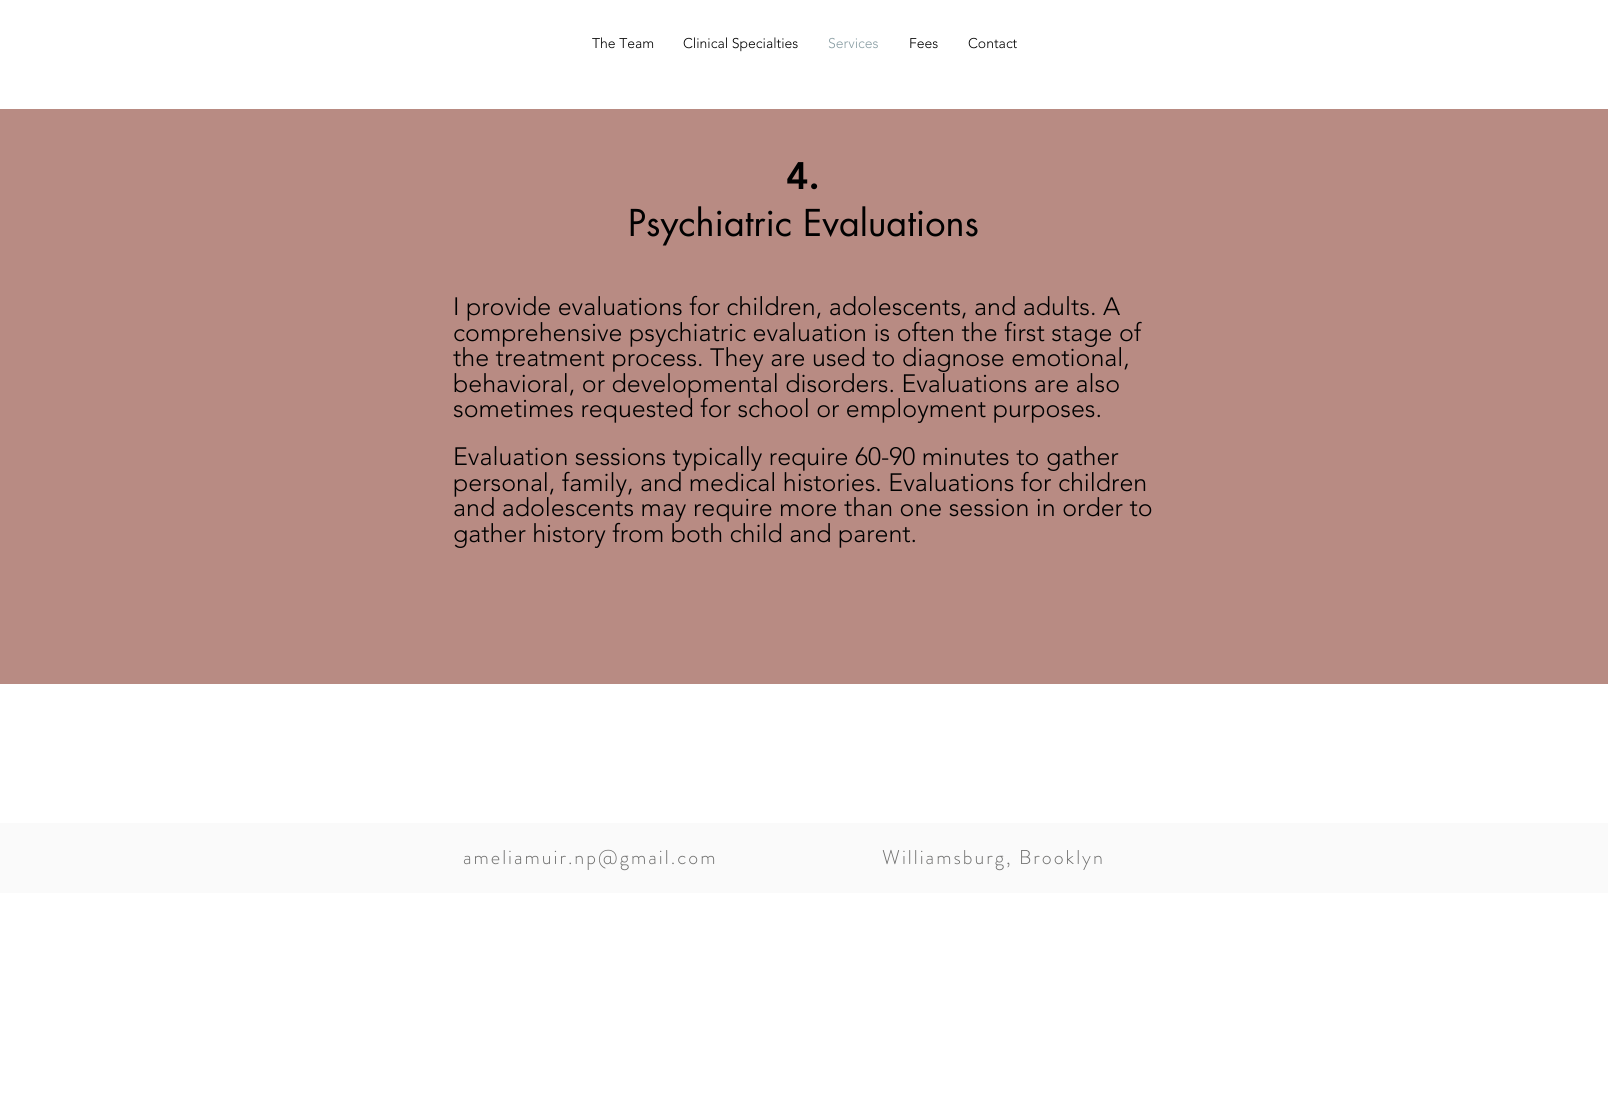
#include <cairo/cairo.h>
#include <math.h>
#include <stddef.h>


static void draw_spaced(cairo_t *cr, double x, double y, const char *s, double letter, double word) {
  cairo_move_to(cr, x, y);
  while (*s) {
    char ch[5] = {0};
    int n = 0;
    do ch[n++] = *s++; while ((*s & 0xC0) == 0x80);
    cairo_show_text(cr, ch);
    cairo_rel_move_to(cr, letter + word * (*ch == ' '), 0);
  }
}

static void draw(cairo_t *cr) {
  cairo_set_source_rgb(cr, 1, 1, 1);
  cairo_paint(cr);
  cairo_set_source_rgb(cr, 184 / 255.0, 139 / 255.0, 131 / 255.0);
  cairo_rectangle(cr, 0, 109, 1608, 575);
  cairo_fill(cr);
  cairo_set_source_rgb(cr, 250 / 255.0, 250 / 255.0, 250 / 255.0);
  cairo_rectangle(cr, 0, 823, 1608, 70);
  cairo_fill(cr);
  cairo_select_font_face(cr, "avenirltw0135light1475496 Light", CAIRO_FONT_SLANT_NORMAL, CAIRO_FONT_WEIGHT_NORMAL);
  cairo_set_font_size(cr, 14);
  cairo_set_source_rgb(cr, 0, 0, 0);
  cairo_move_to(cr, 592, 48);
  cairo_show_text(cr, "The Team");
  cairo_move_to(cr, 683, 48);
  cairo_show_text(cr, "Clinical Specialties");
  cairo_set_source_rgb(cr, 137 / 255.0, 157 / 255.0, 163 / 255.0);
  cairo_move_to(cr, 828, 48);
  cairo_show_text(cr, "Services");
  cairo_set_source_rgb(cr, 0, 0, 0);
  cairo_move_to(cr, 909, 48);
  cairo_show_text(cr, "Fees");
  cairo_move_to(cr, 968, 48);
  cairo_show_text(cr, "Contact");
  cairo_select_font_face(cr, "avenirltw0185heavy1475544 Black", CAIRO_FONT_SLANT_NORMAL, CAIRO_FONT_WEIGHT_NORMAL);
  cairo_set_font_size(cr, 38);
  cairo_move_to(cr, 786, 189);
  cairo_show_text(cr, "4.");
  cairo_select_font_face(cr, "futura", CAIRO_FONT_SLANT_NORMAL, CAIRO_FONT_WEIGHT_NORMAL);
  cairo_set_font_size(cr, 36);
  cairo_move_to(cr, 628, 236);
  cairo_show_text(cr, "Psychiatric Evaluations");
  cairo_select_font_face(cr, "avenirltw0135light1475496 Light", CAIRO_FONT_SLANT_NORMAL, CAIRO_FONT_WEIGHT_NORMAL);
  cairo_set_font_size(cr, 25);
  cairo_move_to(cr, 453, 315);
  cairo_show_text(cr, "I provide evaluations for children, adolescents, and adults. A");
  cairo_move_to(cr, 453, 341);
  cairo_show_text(cr, "comprehensive psychiatric evaluation is often the first stage of");
  cairo_move_to(cr, 453, 366);
  cairo_show_text(cr, "the treatment process. They are used to diagnose emotional,");
  cairo_move_to(cr, 453, 392);
  cairo_show_text(cr, "behavioral, or developmental disorders. Evaluations are also");
  cairo_move_to(cr, 453, 417);
  cairo_show_text(cr, "sometimes requested for school or employment purposes.");
  cairo_move_to(cr, 453, 465);
  cairo_show_text(cr, "Evaluation sessions typically require 60-90 minutes to gather");
  cairo_move_to(cr, 453, 491);
  cairo_show_text(cr, "personal, family, and medical histories. Evaluations for children");
  cairo_move_to(cr, 453, 516);
  cairo_show_text(cr, "and adolescents may require more than one session in order to");
  cairo_move_to(cr, 453, 542);
  cairo_show_text(cr, "gather history from both child and parent.");
  cairo_select_font_face(cr, "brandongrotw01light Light", CAIRO_FONT_SLANT_NORMAL, CAIRO_FONT_WEIGHT_NORMAL);
  cairo_set_font_size(cr, 20);
  cairo_set_source_rgb(cr, 110 / 255.0, 110 / 255.0, 109 / 255.0);
  draw_spaced(cr, 463, 864, "ameliamuir.np@gmail.com", 2, 0);
  draw_spaced(cr, 882, 864, "Williamsburg, Brooklyn", 2, 0);
}

int main(void) {
  cairo_surface_t *surface = cairo_image_surface_create(CAIRO_FORMAT_RGB24, 1608, 1098);
  cairo_t *cr = cairo_create(surface);
  cairo_font_options_t *options = cairo_font_options_create();
  cairo_font_options_set_hint_metrics(options, CAIRO_HINT_METRICS_OFF);
  cairo_font_options_set_hint_style(options, CAIRO_HINT_STYLE_NONE);
  cairo_set_font_options(cr, options);
  cairo_set_miter_limit(cr, 4);
  draw(cr);
  cairo_surface_write_to_png(surface, "out.png");
  cairo_font_options_destroy(options);
  cairo_destroy(cr);
  cairo_surface_destroy(surface);
  return 0;
}
